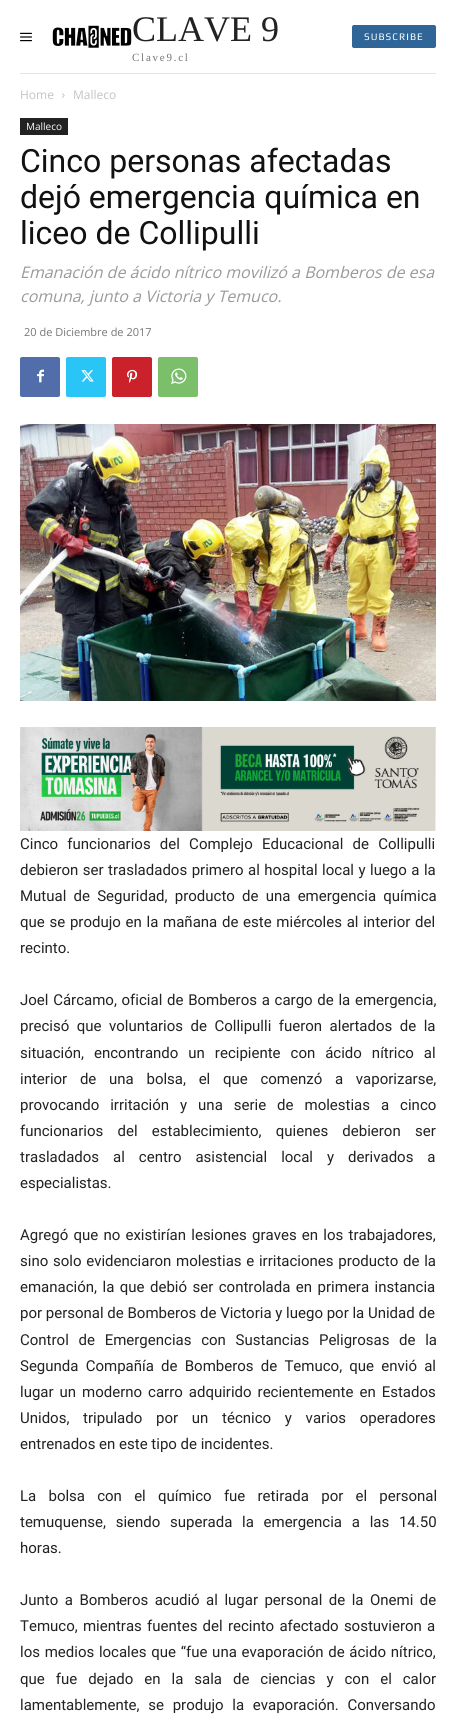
#include <cairo/cairo.h>
#include <math.h>
#include <stddef.h>


static void draw_spaced(cairo_t *cr, double x, double y, const char *s, double letter, double word) {
  cairo_move_to(cr, x, y);
  while (*s) {
    char ch[5] = {0};
    int n = 0;
    do ch[n++] = *s++; while ((*s & 0xC0) == 0x80);
    cairo_show_text(cr, ch);
    cairo_rel_move_to(cr, letter + word * (*ch == ' '), 0);
  }
}

static void rounded_rect(cairo_t *cr, double x, double y, double w, double h, double r) {
  cairo_new_sub_path(cr);
  cairo_arc(cr, x + w - r, y + h - r, r, 0, M_PI / 2);
  cairo_arc(cr, x + r, y + h - r, r, M_PI / 2, M_PI);
  cairo_arc(cr, x + r, y + r, r, M_PI, 1.5 * M_PI);
  cairo_arc(cr, x + w - r, y + r, r, 1.5 * M_PI, 2 * M_PI);
  cairo_close_path(cr);
}

static void draw_image(cairo_t *cr, const char *path, double x, double y, double w, double h) {
  cairo_surface_t *image = cairo_image_surface_create_from_png(path);
  cairo_save(cr);
  cairo_set_source_surface(cr, image, x, y);
  cairo_rectangle(cr, x, y, w, h);
  cairo_fill(cr);
  cairo_restore(cr);
  cairo_surface_destroy(image);
}

static void draw(cairo_t *cr) {
  cairo_set_source_rgb(cr, 1, 1, 1);
  cairo_paint(cr);
  cairo_set_source_rgb(cr, 229 / 255.0, 229 / 255.0, 229 / 255.0);
  cairo_rectangle(cr, 20, 73, 416, 1);
  cairo_fill(cr);
  draw_image(cr, "images/1.png", 20, 32, 12, 10);
  draw_image(cr, "images/2.png", 52, 25, 80, 23);
  cairo_set_source_rgb(cr, 47 / 255.0, 102 / 255.0, 151 / 255.0);
  rounded_rect(cr, 352, 25, 84, 23, 2);
  cairo_fill(cr);
  draw_image(cr, "images/3.png", 62, 93, 3, 5);
  cairo_set_source_rgb(cr, 34 / 255.0, 34 / 255.0, 34 / 255.0);
  cairo_rectangle(cr, 20, 118, 48, 17);
  cairo_fill(cr);
  cairo_set_source_rgb(cr, 81 / 255.0, 110 / 255.0, 171 / 255.0);
  rounded_rect(cr, 20, 357, 40, 40, 2);
  cairo_fill(cr);
  draw_image(cr, "images/4.png", 37, 369, 7, 14);
  cairo_set_source_rgb(cr, 41 / 255.0, 197 / 255.0, 246 / 255.0);
  rounded_rect(cr, 66, 357, 40, 40, 2);
  cairo_fill(cr);
  draw_image(cr, "images/5.png", 81, 370, 13, 12);
  cairo_set_source_rgb(cr, 202 / 255.0, 33 / 255.0, 42 / 255.0);
  rounded_rect(cr, 112, 357, 40, 40, 2);
  cairo_fill(cr);
  draw_image(cr, "images/6.png", 127, 369, 11, 14);
  cairo_set_source_rgb(cr, 123 / 255.0, 191 / 255.0, 106 / 255.0);
  rounded_rect(cr, 158, 357, 40, 40, 2);
  cairo_fill(cr);
  draw_image(cr, "images/7.png", 171, 368, 16, 16);
  draw_image(cr, "images/8.png", 20, 424, 416, 277);
  draw_image(cr, "images/9.png", 20, 727, 416, 104);
  cairo_select_font_face(cr, "Liberation Serif", CAIRO_FONT_SLANT_NORMAL, CAIRO_FONT_WEIGHT_NORMAL);
  cairo_set_font_size(cr, 36);
  cairo_set_source_rgb(cr, 34 / 255.0, 34 / 255.0, 34 / 255.0);
  cairo_move_to(cr, 132, 41);
  cairo_show_text(cr, "CLAVE 9");
  cairo_set_font_size(cr, 11);
  cairo_set_source_rgb(cr, 118 / 255.0, 118 / 255.0, 118 / 255.0);
  draw_spaced(cr, 132, 61, "Clave9.cl", 1.75, 0);
  cairo_select_font_face(cr, "Play", CAIRO_FONT_SLANT_NORMAL, CAIRO_FONT_WEIGHT_NORMAL);
  cairo_set_font_size(cr, 10);
  cairo_set_source_rgb(cr, 1, 1, 1);
  draw_spaced(cr, 364, 40, "SUBSCRIBE", 1, 0);
  cairo_select_font_face(cr, "Open Sans", CAIRO_FONT_SLANT_NORMAL, CAIRO_FONT_WEIGHT_NORMAL);
  cairo_set_font_size(cr, 12);
  cairo_set_source_rgb(cr, 195 / 255.0, 195 / 255.0, 195 / 255.0);
  cairo_move_to(cr, 20, 99);
  cairo_show_text(cr, "Home");
  cairo_move_to(cr, 73, 99);
  cairo_show_text(cr, "Malleco");
  cairo_set_font_size(cr, 10);
  cairo_set_source_rgb(cr, 1, 1, 1);
  cairo_move_to(cr, 26, 130);
  cairo_show_text(cr, "Malleco");
  cairo_select_font_face(cr, "Roboto", CAIRO_FONT_SLANT_NORMAL, CAIRO_FONT_WEIGHT_NORMAL);
  cairo_set_font_size(cr, 32);
  cairo_set_source_rgb(cr, 17 / 255.0, 17 / 255.0, 17 / 255.0);
  cairo_move_to(cr, 20, 172);
  cairo_show_text(cr, "Cinco personas afectadas");
  cairo_move_to(cr, 20, 208);
  cairo_show_text(cr, "dejó emergencia química en");
  cairo_move_to(cr, 20, 244);
  cairo_show_text(cr, "liceo de Collipulli");
  cairo_select_font_face(cr, "Open Sans", CAIRO_FONT_SLANT_ITALIC, CAIRO_FONT_WEIGHT_NORMAL);
  cairo_set_font_size(cr, 16);
  cairo_set_source_rgb(cr, 153 / 255.0, 153 / 255.0, 153 / 255.0);
  cairo_move_to(cr, 20, 278);
  cairo_show_text(cr, "Emanación de ácido nítrico movilizó a Bomberos de esa");
  cairo_move_to(cr, 20, 302);
  cairo_show_text(cr, "comuna, junto a Victoria y Temuco.");
  cairo_select_font_face(cr, "Open Sans", CAIRO_FONT_SLANT_NORMAL, CAIRO_FONT_WEIGHT_NORMAL);
  cairo_set_font_size(cr, 11);
  cairo_set_source_rgb(cr, 118 / 255.0, 118 / 255.0, 118 / 255.0);
  cairo_move_to(cr, 24, 336);
  cairo_show_text(cr, "20 de Diciembre de 2017");
  cairo_select_font_face(cr, "Roboto", CAIRO_FONT_SLANT_NORMAL, CAIRO_FONT_WEIGHT_NORMAL);
  cairo_set_font_size(cr, 15);
  cairo_set_source_rgb(cr, 34 / 255.0, 34 / 255.0, 34 / 255.0);
  draw_spaced(cr, 20, 849, "Cinco funcionarios del Complejo Educacional de Collipulli", 0, 5.5);
  draw_spaced(cr, 20, 875, "debieron ser trasladados primero al hospital local y luego a la", 0, 0.75);
  draw_spaced(cr, 20, 901, "Mutual de Seguridad, producto de una emergencia química", 0, 3.5);
  draw_spaced(cr, 20, 927, "que se produjo en la mañana de este miércoles al interior del", 0, 1);
  cairo_move_to(cr, 20, 953);
  cairo_show_text(cr, "recinto.");
  draw_spaced(cr, 20, 1005, "Joel Cárcamo, oficial de Bomberos a cargo de la emergencia,", 0, 1);
  draw_spaced(cr, 20, 1031, "precisó que voluntarios de Collipulli fueron alertados de la", 0, 3.75);
  draw_spaced(cr, 20, 1058, "situación, encontrando un recipiente con ácido nítrico al", 0, 6.25);
  draw_spaced(cr, 20, 1084, "interior de una bolsa, el que comenzó a vaporizarse,", 0, 9);
  draw_spaced(cr, 20, 1110, "provocando irritación y una serie de molestias a cinco", 0, 7.25);
  draw_spaced(cr, 20, 1136, "funcionarios del establecimiento, quienes debieron ser", 0, 10.5);
  draw_spaced(cr, 20, 1162, "trasladados al centro asistencial local y derivados a", 0, 10.25);
  cairo_move_to(cr, 20, 1188);
  cairo_show_text(cr, "especialistas.");
  draw_spaced(cr, 20, 1240, "Agregó que no existirían lesiones graves en los trabajadores,", 0, 1.5);
  draw_spaced(cr, 20, 1266, "sino solo evidenciaron molestias e irritaciones producto de la", 0, 1);
  draw_spaced(cr, 20, 1292, "emanación, la que debió ser controlada en primera instancia", 0, 1.75);
  cairo_move_to(cr, 20, 1318);
  cairo_show_text(cr, "por personal de Bomberos de Victoria y luego por la Unidad de");
  draw_spaced(cr, 20, 1345, "Control de Emergencias con Sustancias Peligrosas de la", 0, 6);
  draw_spaced(cr, 20, 1371, "Segunda Compañía de Bomberos de Temuco, que envió al", 0, 3.5);
  draw_spaced(cr, 20, 1397, "lugar un moderno carro adquirido recientemente en Estados", 0, 2.25);
  draw_spaced(cr, 20, 1423, "Unidos, tripulado por un técnico y varios operadores", 0, 10);
  cairo_move_to(cr, 20, 1449);
  cairo_show_text(cr, "entrenados en este tipo de incidentes.");
  draw_spaced(cr, 20, 1501, "La bolsa con el químico fue retirada por el personal", 0, 8.5);
  draw_spaced(cr, 20, 1527, "temuquense, siendo superada la emergencia a las 14.50", 0, 6);
  cairo_move_to(cr, 20, 1553);
  cairo_show_text(cr, "horas.");
  draw_spaced(cr, 20, 1605, "Junto a Bomberos acudió al lugar personal de la Onemi de", 0, 2.75);
  draw_spaced(cr, 20, 1631, "Temuco, mientras fuentes del recinto afectado sostuvieron a", 0, 1.5);
  draw_spaced(cr, 20, 1657, "los medios locales que “fue una evaporación de ácido nítrico,", 0, 1);
  draw_spaced(cr, 20, 1684, "que fue dejado en la sala de ciencias y con el calor", 0, 7.25);
  draw_spaced(cr, 20, 1710, "lamentablemente, se produjo la evaporación. Conversando", 0, 5);
}

int main(void) {
  cairo_surface_t *surface = cairo_image_surface_create(CAIRO_FORMAT_RGB24, 456, 1723);
  cairo_t *cr = cairo_create(surface);
  cairo_font_options_t *options = cairo_font_options_create();
  cairo_font_options_set_hint_metrics(options, CAIRO_HINT_METRICS_OFF);
  cairo_font_options_set_hint_style(options, CAIRO_HINT_STYLE_NONE);
  cairo_set_font_options(cr, options);
  cairo_set_miter_limit(cr, 4);
  draw(cr);
  cairo_surface_write_to_png(surface, "out.png");
  cairo_font_options_destroy(options);
  cairo_destroy(cr);
  cairo_surface_destroy(surface);
  return 0;
}
